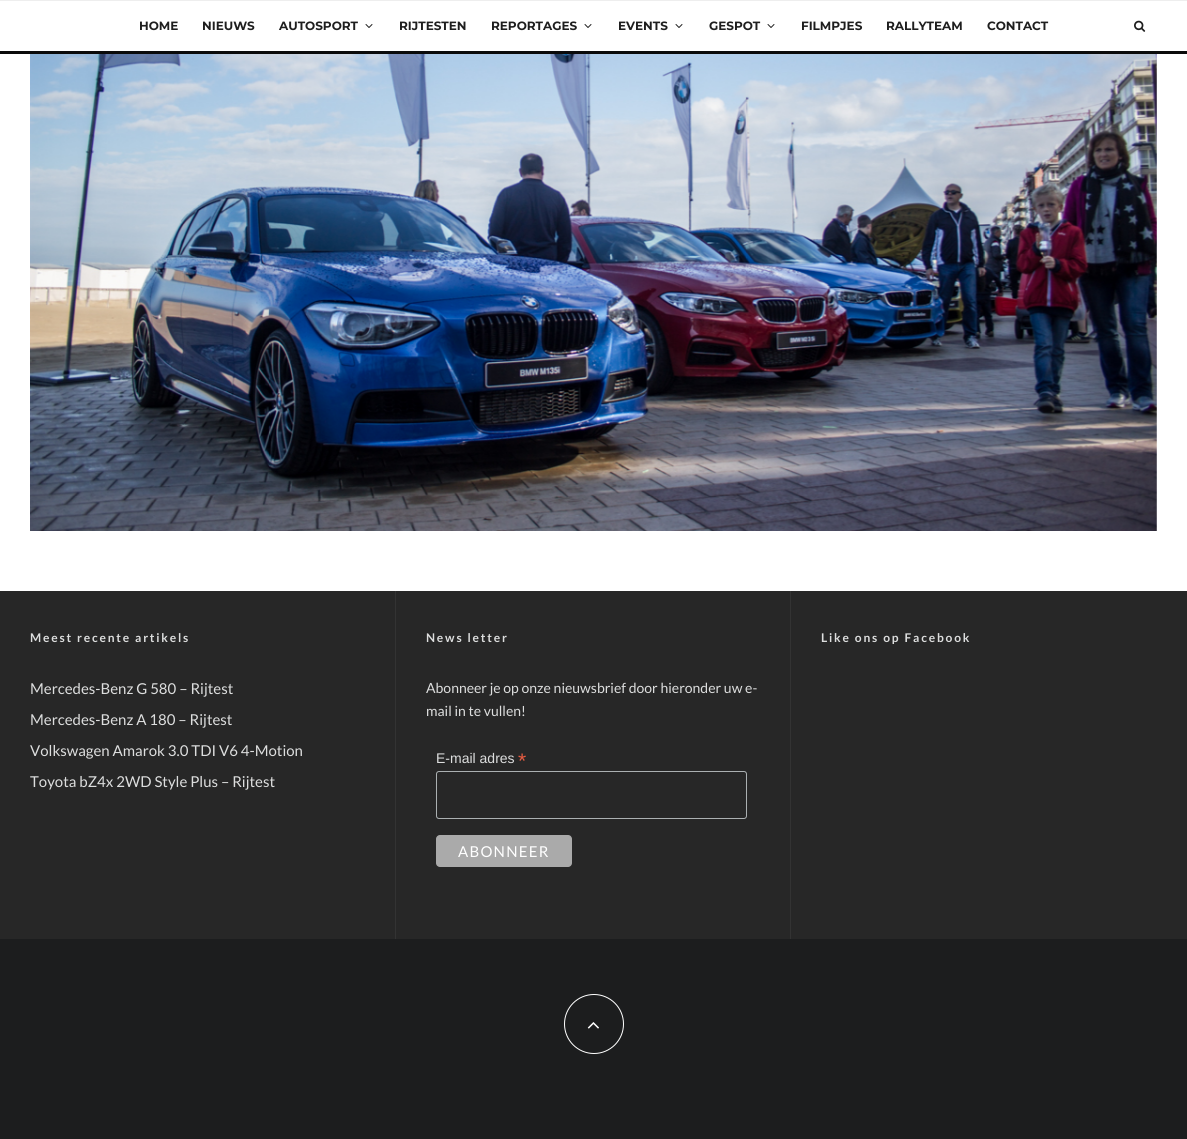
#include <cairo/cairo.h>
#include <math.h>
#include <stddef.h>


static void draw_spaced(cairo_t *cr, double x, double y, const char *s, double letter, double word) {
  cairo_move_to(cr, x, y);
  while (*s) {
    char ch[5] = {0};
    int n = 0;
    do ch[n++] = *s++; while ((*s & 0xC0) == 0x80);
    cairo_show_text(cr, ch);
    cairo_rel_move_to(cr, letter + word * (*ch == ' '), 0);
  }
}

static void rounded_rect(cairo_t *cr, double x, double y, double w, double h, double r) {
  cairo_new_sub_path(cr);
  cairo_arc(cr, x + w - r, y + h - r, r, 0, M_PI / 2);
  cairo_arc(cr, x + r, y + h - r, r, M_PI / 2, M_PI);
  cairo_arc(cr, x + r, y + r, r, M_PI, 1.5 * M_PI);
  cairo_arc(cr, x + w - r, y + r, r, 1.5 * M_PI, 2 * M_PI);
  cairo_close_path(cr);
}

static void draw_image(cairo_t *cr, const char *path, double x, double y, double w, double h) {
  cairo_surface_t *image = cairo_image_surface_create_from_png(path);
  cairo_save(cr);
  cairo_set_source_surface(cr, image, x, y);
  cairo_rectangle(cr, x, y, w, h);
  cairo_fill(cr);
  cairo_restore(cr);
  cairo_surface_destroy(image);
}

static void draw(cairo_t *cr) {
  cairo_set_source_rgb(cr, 1, 1, 1);
  cairo_paint(cr);
  cairo_set_source_rgb(cr, 238 / 255.0, 238 / 255.0, 238 / 255.0);
  cairo_rectangle(cr, 0, 0, 1187, 1);
  cairo_fill(cr);
  cairo_set_source_rgb(cr, 10 / 255.0, 10 / 255.0, 10 / 255.0);
  cairo_rectangle(cr, 0, 51, 1187, 3);
  cairo_fill(cr);
  draw_image(cr, "images/1.png", 365, 24, 8, 4);
  draw_image(cr, "images/1.png", 584, 24, 8, 4);
  draw_image(cr, "images/1.png", 675, 24, 8, 4);
  draw_image(cr, "images/1.png", 767, 24, 8, 4);
  draw_image(cr, "images/2.png", 1134, 20, 12, 12);
  draw_image(cr, "images/3.png", 30, 54, 1127, 477);
  cairo_set_source_rgb(cr, 39 / 255.0, 39 / 255.0, 39 / 255.0);
  cairo_rectangle(cr, 0, 591, 1187, 348);
  cairo_fill(cr);
  cairo_set_source_rgb(cr, 51 / 255.0, 51 / 255.0, 51 / 255.0);
  cairo_rectangle(cr, 395, 591, 1, 348);
  cairo_fill(cr);
  cairo_rectangle(cr, 790, 591, 1, 348);
  cairo_fill(cr);
  rounded_rect(cr, 436.5, 771.5, 310, 47, 2.5);
  cairo_set_source_rgb(cr, 171 / 255.0, 176 / 255.0, 178 / 255.0);
  cairo_set_line_width(cr, 1);
  cairo_stroke(cr);
  cairo_set_source_rgb(cr, 170 / 255.0, 170 / 255.0, 170 / 255.0);
  rounded_rect(cr, 436, 835, 136, 32, 4);
  cairo_fill(cr);
  cairo_set_source_rgb(cr, 28 / 255.0, 29 / 255.0, 30 / 255.0);
  cairo_rectangle(cr, 0, 939, 1187, 200);
  cairo_fill(cr);
  cairo_arc(cr, 594, 1024, 29.5, 0, 2 * M_PI);
  cairo_set_source_rgb(cr, 1, 1, 1);
  cairo_stroke(cr);
  draw_image(cr, "images/4.png", 587, 1022, 12, 7);
  cairo_select_font_face(cr, "Montserrat", CAIRO_FONT_SLANT_NORMAL, CAIRO_FONT_WEIGHT_BOLD);
  cairo_set_font_size(cr, 12);
  cairo_set_source_rgb(cr, 30 / 255.0, 30 / 255.0, 30 / 255.0);
  cairo_move_to(cr, 139, 30);
  cairo_show_text(cr, "HOME");
  cairo_move_to(cr, 202, 30);
  cairo_show_text(cr, "NIEUWS");
  cairo_move_to(cr, 279, 30);
  cairo_show_text(cr, "AUTOSPORT");
  cairo_move_to(cr, 399, 30);
  cairo_show_text(cr, "RIJTESTEN");
  cairo_move_to(cr, 491, 30);
  cairo_show_text(cr, "REPORTAGES");
  cairo_move_to(cr, 618, 30);
  cairo_show_text(cr, "EVENTS");
  cairo_move_to(cr, 709, 30);
  cairo_show_text(cr, "GESPOT");
  cairo_move_to(cr, 801, 30);
  cairo_show_text(cr, "FILMPJES");
  cairo_move_to(cr, 886, 30);
  cairo_show_text(cr, "RALLYTEAM");
  cairo_move_to(cr, 987, 30);
  cairo_show_text(cr, "CONTACT");
  cairo_select_font_face(cr, "Lato", CAIRO_FONT_SLANT_NORMAL, CAIRO_FONT_WEIGHT_BOLD);
  cairo_set_source_rgb(cr, 221 / 255.0, 222 / 255.0, 222 / 255.0);
  draw_spaced(cr, 30, 642, "Meest recente artikels", 1.8, 0);
  cairo_select_font_face(cr, "Lato", CAIRO_FONT_SLANT_NORMAL, CAIRO_FONT_WEIGHT_NORMAL);
  cairo_set_font_size(cr, 15);
  cairo_move_to(cr, 30, 694);
  cairo_show_text(cr, "Mercedes-Benz G 580 – Rijtest");
  cairo_move_to(cr, 30, 725);
  cairo_show_text(cr, "Mercedes-Benz A 180 – Rijtest");
  cairo_move_to(cr, 30, 756);
  cairo_show_text(cr, "Volkswagen Amarok 3.0 TDI V6 4-Motion");
  cairo_move_to(cr, 30, 787);
  cairo_show_text(cr, "Toyota bZ4x 2WD Style Plus – Rijtest");
  cairo_select_font_face(cr, "Lato", CAIRO_FONT_SLANT_NORMAL, CAIRO_FONT_WEIGHT_BOLD);
  cairo_set_font_size(cr, 12);
  draw_spaced(cr, 426, 642, "News letter", 1.8, 0);
  cairo_select_font_face(cr, "Lato", CAIRO_FONT_SLANT_NORMAL, CAIRO_FONT_WEIGHT_NORMAL);
  cairo_set_font_size(cr, 14);
  cairo_move_to(cr, 426, 693);
  cairo_show_text(cr, "Abonneer je op onze nieuwsbrief door hieronder uw e-");
  cairo_move_to(cr, 426, 716);
  cairo_show_text(cr, "mail in te vullen!");
  cairo_select_font_face(cr, "Liberation Sans", CAIRO_FONT_SLANT_NORMAL, CAIRO_FONT_WEIGHT_NORMAL);
  cairo_move_to(cr, 436, 763);
  cairo_show_text(cr, "E-mail adres");
  cairo_set_font_size(cr, 21);
  cairo_set_source_rgb(cr, 232 / 255.0, 92 / 255.0, 65 / 255.0);
  cairo_move_to(cr, 518, 768);
  cairo_show_text(cr, "*");
  cairo_select_font_face(cr, "Lato", CAIRO_FONT_SLANT_NORMAL, CAIRO_FONT_WEIGHT_NORMAL);
  cairo_set_font_size(cr, 15);
  cairo_set_source_rgb(cr, 1, 1, 1);
  draw_spaced(cr, 458, 857, "ABONNEER", 1.25, 0);
  cairo_select_font_face(cr, "Lato", CAIRO_FONT_SLANT_NORMAL, CAIRO_FONT_WEIGHT_BOLD);
  cairo_set_font_size(cr, 12);
  cairo_set_source_rgb(cr, 221 / 255.0, 222 / 255.0, 222 / 255.0);
  draw_spaced(cr, 821, 642, "Like ons op Facebook", 1.8, 0);
}

int main(void) {
  cairo_surface_t *surface = cairo_image_surface_create(CAIRO_FORMAT_RGB24, 1187, 1139);
  cairo_t *cr = cairo_create(surface);
  cairo_font_options_t *options = cairo_font_options_create();
  cairo_font_options_set_hint_metrics(options, CAIRO_HINT_METRICS_OFF);
  cairo_font_options_set_hint_style(options, CAIRO_HINT_STYLE_NONE);
  cairo_set_font_options(cr, options);
  cairo_set_miter_limit(cr, 4);
  draw(cr);
  cairo_surface_write_to_png(surface, "out.png");
  cairo_font_options_destroy(options);
  cairo_destroy(cr);
  cairo_surface_destroy(surface);
  return 0;
}
